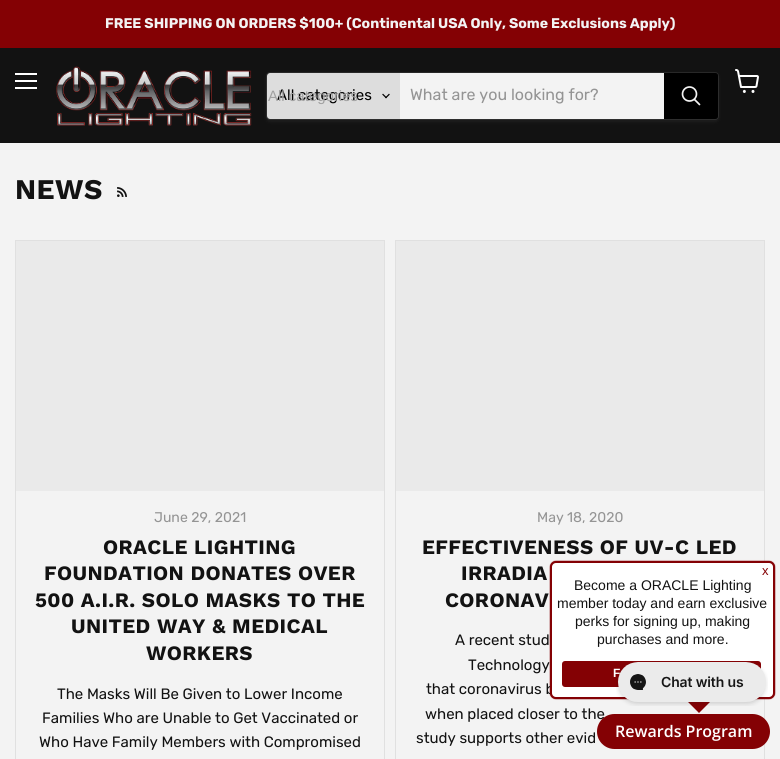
#include <cairo/cairo.h>
#include <math.h>
#include <stddef.h>


static void draw_spaced(cairo_t *cr, double x, double y, const char *s, double letter, double word) {
  cairo_move_to(cr, x, y);
  while (*s) {
    char ch[5] = {0};
    int n = 0;
    do ch[n++] = *s++; while ((*s & 0xC0) == 0x80);
    cairo_show_text(cr, ch);
    cairo_rel_move_to(cr, letter + word * (*ch == ' '), 0);
  }
}

static void rounded_rect(cairo_t *cr, double x, double y, double w, double h, double r) {
  cairo_new_sub_path(cr);
  cairo_arc(cr, x + w - r, y + h - r, r, 0, M_PI / 2);
  cairo_arc(cr, x + r, y + h - r, r, M_PI / 2, M_PI);
  cairo_arc(cr, x + r, y + r, r, M_PI, 1.5 * M_PI);
  cairo_arc(cr, x + w - r, y + r, r, 1.5 * M_PI, 2 * M_PI);
  cairo_close_path(cr);
}

static void draw_shadow(cairo_t *cr, double x, double y, double w, double h, double r, double blur, double alpha) {
  cairo_push_group_with_content(cr, CAIRO_CONTENT_ALPHA);
  cairo_set_operator(cr, CAIRO_OPERATOR_SOURCE);
  for (int i = 15; i >= -15 && fmin(w, h) + blur * i / 3 > 0; i -= 2) {
    double e = blur * i / 6;
    cairo_set_source_rgba(cr, 0, 0, 0, alpha * erfc((i - 1) / 8.5) / 2);
    rounded_rect(cr, x - e, y - e, w + 2 * e, h + 2 * e, fmax(0, fmin(r + e + blur * .6, fmin(w, h) / 2 + e)));
    cairo_fill(cr);
  }
  cairo_pattern_t *soft = cairo_pop_group(cr);
  cairo_mask(cr, soft);
  cairo_pattern_destroy(soft);
}

static void draw_image(cairo_t *cr, const char *path, double x, double y, double w, double h) {
  cairo_surface_t *image = cairo_image_surface_create_from_png(path);
  cairo_save(cr);
  cairo_set_source_surface(cr, image, x, y);
  cairo_rectangle(cr, x, y, w, h);
  cairo_fill(cr);
  cairo_restore(cr);
  cairo_surface_destroy(image);
}

static void draw(cairo_t *cr) {
  cairo_set_source_rgb(cr, 243 / 255.0, 243 / 255.0, 243 / 255.0);
  cairo_paint(cr);
  cairo_set_source_rgb(cr, 132 / 255.0, 1 / 255.0, 4 / 255.0);
  cairo_rectangle(cr, 0, 0, 780, 48);
  cairo_fill(cr);
  cairo_set_source_rgb(cr, 18 / 255.0, 18 / 255.0, 18 / 255.0);
  cairo_rectangle(cr, 0, 48, 780, 95);
  cairo_fill(cr);
  cairo_set_source_rgb(cr, 1, 1, 1);
  cairo_rectangle(cr, 15, 73, 22, 2);
  cairo_fill(cr);
  cairo_rectangle(cr, 15, 80, 22, 2);
  cairo_fill(cr);
  cairo_rectangle(cr, 15, 87, 22, 2);
  cairo_fill(cr);
  draw_image(cr, "images/1.png", 735, 69, 24, 24);
  draw_image(cr, "images/2.png", 56, 66, 196, 60);
  cairo_set_source_rgb(cr, 122 / 255.0, 122 / 255.0, 122 / 255.0);
  draw_shadow(cr, 266, 74, 453, 48, 4, 1.5, 0.11);
  rounded_rect(cr, 266.5, 72.5, 452, 47, 3.5);
  cairo_set_source_rgba(cr, 122 / 255.0, 122 / 255.0, 122 / 255.0, 0.2);
  cairo_set_line_width(cr, 1);
  cairo_stroke(cr);
  cairo_set_source_rgb(cr, 221 / 255.0, 221 / 255.0, 221 / 255.0);
  cairo_new_path(cr);
  cairo_move_to(cr, 270, 73);
  cairo_line_to(cr, 400, 73);
  cairo_line_to(cr, 400, 119);
  cairo_line_to(cr, 270, 119);
  cairo_curve_to(cr, 268.5, 119, 267, 117.5, 267, 116);
  cairo_line_to(cr, 267, 76);
  cairo_curve_to(cr, 267, 74.5, 268.5, 73, 270, 73);
  cairo_close_path(cr);
  cairo_fill(cr);
  draw_image(cr, "images/3.png", 382, 93, 8, 6);
  cairo_set_source_rgb(cr, 243 / 255.0, 243 / 255.0, 243 / 255.0);
  cairo_rectangle(cr, 400, 73, 264, 46);
  cairo_fill(cr);
  cairo_set_source_rgb(cr, 0, 0, 0);
  cairo_new_path(cr);
  cairo_move_to(cr, 664.5, 73.5);
  cairo_line_to(cr, 715, 73.5);
  cairo_curve_to(cr, 716.5, 73.5, 717.5, 74.5, 717.5, 76);
  cairo_line_to(cr, 717.5, 116);
  cairo_curve_to(cr, 717.5, 117.5, 716.5, 118.5, 715, 118.5);
  cairo_line_to(cr, 664.5, 118.5);
  cairo_close_path(cr);
  cairo_fill_preserve(cr);
  cairo_stroke(cr);
  cairo_new_path(cr);
  cairo_move_to(cr, 699.5, 104.5);
  cairo_line_to(cr, 694.5, 99.5);
  cairo_set_source_rgb(cr, 243 / 255.0, 243 / 255.0, 243 / 255.0);
  cairo_set_line_width(cr, 1.7);
  cairo_set_line_cap(cr, CAIRO_LINE_CAP_ROUND);
  cairo_stroke(cr);
  cairo_arc(cr, 689.5, 94, 7, 0, 2 * M_PI);
  cairo_set_line_cap(cr, CAIRO_LINE_CAP_BUTT);
  cairo_stroke(cr);
  draw_image(cr, "images/4.png", 117, 187, 10, 10);
  cairo_rectangle(cr, 15.5, 240.5, 369, 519);
  cairo_set_source_rgb(cr, 224 / 255.0, 224 / 255.0, 224 / 255.0);
  cairo_set_line_width(cr, 1);
  cairo_stroke(cr);
  cairo_set_source_rgb(cr, 234 / 255.0, 234 / 255.0, 234 / 255.0);
  cairo_rectangle(cr, 16, 241, 368, 250);
  cairo_fill(cr);
  cairo_rectangle(cr, 395.5, 240.5, 369, 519);
  cairo_set_source_rgb(cr, 224 / 255.0, 224 / 255.0, 224 / 255.0);
  cairo_stroke(cr);
  cairo_set_source_rgb(cr, 234 / 255.0, 234 / 255.0, 234 / 255.0);
  cairo_rectangle(cr, 396, 241, 368, 250);
  cairo_fill(cr);
  cairo_set_source_rgb(cr, 132 / 255.0, 1 / 255.0, 4 / 255.0);
  draw_shadow(cr, 550, 561, 225, 138, 6, 0.5, 1);
  cairo_set_source_rgb(cr, 132 / 255.0, 1 / 255.0, 4 / 255.0);
  cairo_new_path(cr);
  cairo_move_to(cr, 685, 699);
  cairo_line_to(cr, 713, 699);
  cairo_line_to(cr, 699, 713);
  cairo_close_path(cr);
  cairo_fill(cr);
  cairo_select_font_face(cr, "Rubik", CAIRO_FONT_SLANT_NORMAL, CAIRO_FONT_WEIGHT_BOLD);
  cairo_set_font_size(cr, 14.05);
  cairo_set_source_rgb(cr, 243 / 255.0, 243 / 255.0, 243 / 255.0);
  cairo_move_to(cr, 105, 28);
  cairo_show_text(cr, "FREE SHIPPING ON ORDERS $100+ (Continental USA Only, Some Exclusions Apply)");
  cairo_select_font_face(cr, "Rubik", CAIRO_FONT_SLANT_NORMAL, CAIRO_FONT_WEIGHT_NORMAL);
  cairo_set_font_size(cr, 15);
  cairo_set_source_rgb(cr, 0, 0, 0);
  cairo_move_to(cr, 277, 100);
  cairo_show_text(cr, "All categories");
  cairo_select_font_face(cr, "Liberation Sans", CAIRO_FONT_SLANT_NORMAL, CAIRO_FONT_WEIGHT_NORMAL);
  cairo_set_source_rgb(cr, 161 / 255.0, 161 / 255.0, 161 / 255.0);
  cairo_move_to(cr, 268, 101);
  cairo_show_text(cr, "All categories");
  cairo_select_font_face(cr, "Rubik", CAIRO_FONT_SLANT_NORMAL, CAIRO_FONT_WEIGHT_NORMAL);
  cairo_set_font_size(cr, 16);
  cairo_set_source_rgb(cr, 148 / 255.0, 148 / 255.0, 148 / 255.0);
  cairo_move_to(cr, 410, 100);
  cairo_show_text(cr, "What are you looking for?");
  cairo_select_font_face(cr, "Work Sans", CAIRO_FONT_SLANT_NORMAL, CAIRO_FONT_WEIGHT_BOLD);
  cairo_set_font_size(cr, 28.5);
  cairo_set_source_rgb(cr, 18 / 255.0, 18 / 255.0, 18 / 255.0);
  draw_spaced(cr, 15, 199, "NEWS", 0.5, 0);
  cairo_select_font_face(cr, "Rubik", CAIRO_FONT_SLANT_NORMAL, CAIRO_FONT_WEIGHT_NORMAL);
  cairo_set_font_size(cr, 14.05);
  cairo_set_source_rgb(cr, 148 / 255.0, 148 / 255.0, 148 / 255.0);
  cairo_move_to(cr, 154, 522);
  cairo_show_text(cr, "June 29, 2021");
  cairo_select_font_face(cr, "Work Sans", CAIRO_FONT_SLANT_NORMAL, CAIRO_FONT_WEIGHT_BOLD);
  cairo_set_font_size(cr, 20.5);
  cairo_set_source_rgb(cr, 18 / 255.0, 18 / 255.0, 18 / 255.0);
  draw_spaced(cr, 103, 554, "ORACLE LIGHTING", 0.4, 0);
  draw_spaced(cr, 44, 580, "FOUNDATION DONATES OVER", 0.4, 0);
  draw_spaced(cr, 35, 607, "500 A.I.R. SOLO MASKS TO THE", 0.4, 0);
  draw_spaced(cr, 71, 633, "UNITED WAY & MEDICAL", 0.4, 0);
  draw_spaced(cr, 146, 660, "WORKERS", 0.4, 0);
  cairo_select_font_face(cr, "Rubik", CAIRO_FONT_SLANT_NORMAL, CAIRO_FONT_WEIGHT_NORMAL);
  cairo_set_font_size(cr, 15);
  cairo_move_to(cr, 57, 699);
  cairo_show_text(cr, "The Masks Will Be Given to Lower Income");
  cairo_move_to(cr, 42, 723);
  cairo_show_text(cr, "Families Who are Unable to Get Vaccinated or");
  cairo_move_to(cr, 39, 747);
  cairo_show_text(cr, "Who Have Family Members with Compromised");
  cairo_set_font_size(cr, 14.05);
  cairo_set_source_rgb(cr, 148 / 255.0, 148 / 255.0, 148 / 255.0);
  cairo_move_to(cr, 537, 522);
  cairo_show_text(cr, "May 18, 2020");
  cairo_select_font_face(cr, "Work Sans", CAIRO_FONT_SLANT_NORMAL, CAIRO_FONT_WEIGHT_BOLD);
  cairo_set_font_size(cr, 20.5);
  cairo_set_source_rgb(cr, 18 / 255.0, 18 / 255.0, 18 / 255.0);
  draw_spaced(cr, 422, 554, "EFFECTIVENESS OF UV-C LED", 0.4, 0);
  draw_spaced(cr, 461, 580, "IRRADIA", 0.4, 0);
  draw_spaced(cr, 445, 607, "CORONAV", 0.4, 0);
  cairo_select_font_face(cr, "Rubik", CAIRO_FONT_SLANT_NORMAL, CAIRO_FONT_WEIGHT_NORMAL);
  cairo_set_font_size(cr, 15);
  cairo_move_to(cr, 455, 645);
  cairo_show_text(cr, "A recent stud");
  cairo_move_to(cr, 468, 670);
  cairo_show_text(cr, "Technology");
  cairo_move_to(cr, 426, 694);
  cairo_show_text(cr, "that coronavirus b");
  cairo_move_to(cr, 425, 719);
  cairo_show_text(cr, "when placed closer to the");
  cairo_move_to(cr, 416, 743);
  cairo_show_text(cr, "study supports other evid");
  cairo_set_source_rgb(cr, 1, 1, 1);
  rounded_rect(cr, 551, 562, 223, 136, 5);
  cairo_fill_preserve(cr);
  cairo_set_source_rgb(cr, 132 / 255.0, 1 / 255.0, 4 / 255.0);
  cairo_set_line_width(cr, 2);
  cairo_stroke(cr);
  cairo_select_font_face(cr, "Liberation Sans", CAIRO_FONT_SLANT_NORMAL, CAIRO_FONT_WEIGHT_NORMAL);
  cairo_set_font_size(cr, 13);
  cairo_move_to(cr, 762, 575);
  cairo_show_text(cr, "x");
  cairo_set_font_size(cr, 14);
  cairo_set_source_rgb(cr, 18 / 255.0, 18 / 255.0, 18 / 255.0);
  cairo_move_to(cr, 574, 590);
  cairo_show_text(cr, "Become a ORACLE Lighting");
  cairo_move_to(cr, 557, 608);
  cairo_show_text(cr, "member today and earn exclusive");
  cairo_move_to(cr, 575, 626);
  cairo_show_text(cr, "perks for signing up, making");
  cairo_move_to(cr, 597, 644);
  cairo_show_text(cr, "purchases and more.");
  cairo_set_source_rgb(cr, 132 / 255.0, 1 / 255.0, 4 / 255.0);
  rounded_rect(cr, 562, 661, 199, 26, 3);
  cairo_fill(cr);
  cairo_select_font_face(cr, "Liberation Sans", CAIRO_FONT_SLANT_NORMAL, CAIRO_FONT_WEIGHT_BOLD);
  cairo_set_font_size(cr, 12);
  cairo_set_source_rgb(cr, 1, 1, 1);
  cairo_move_to(cr, 613, 677);
  cairo_show_text(cr, "F");
  draw_image(cr, "images/5.png", 616, 662, 152, 44);
  cairo_set_source_rgb(cr, 132 / 255.0, 1 / 255.0, 4 / 255.0);
  rounded_rect(cr, 597, 714, 173, 35, 17.5);
  cairo_fill(cr);
  cairo_select_font_face(cr, "Open Sans SemiBold", CAIRO_FONT_SLANT_NORMAL, CAIRO_FONT_WEIGHT_NORMAL);
  cairo_set_font_size(cr, 16);
  cairo_set_source_rgb(cr, 1, 1, 1);
  cairo_move_to(cr, 615, 737);
  cairo_show_text(cr, "Rewards Program");
}

int main(void) {
  cairo_surface_t *surface = cairo_image_surface_create(CAIRO_FORMAT_RGB24, 780, 759);
  cairo_t *cr = cairo_create(surface);
  cairo_font_options_t *options = cairo_font_options_create();
  cairo_font_options_set_hint_metrics(options, CAIRO_HINT_METRICS_OFF);
  cairo_font_options_set_hint_style(options, CAIRO_HINT_STYLE_NONE);
  cairo_set_font_options(cr, options);
  cairo_set_miter_limit(cr, 4);
  draw(cr);
  cairo_surface_write_to_png(surface, "out.png");
  cairo_font_options_destroy(options);
  cairo_destroy(cr);
  cairo_surface_destroy(surface);
  return 0;
}
